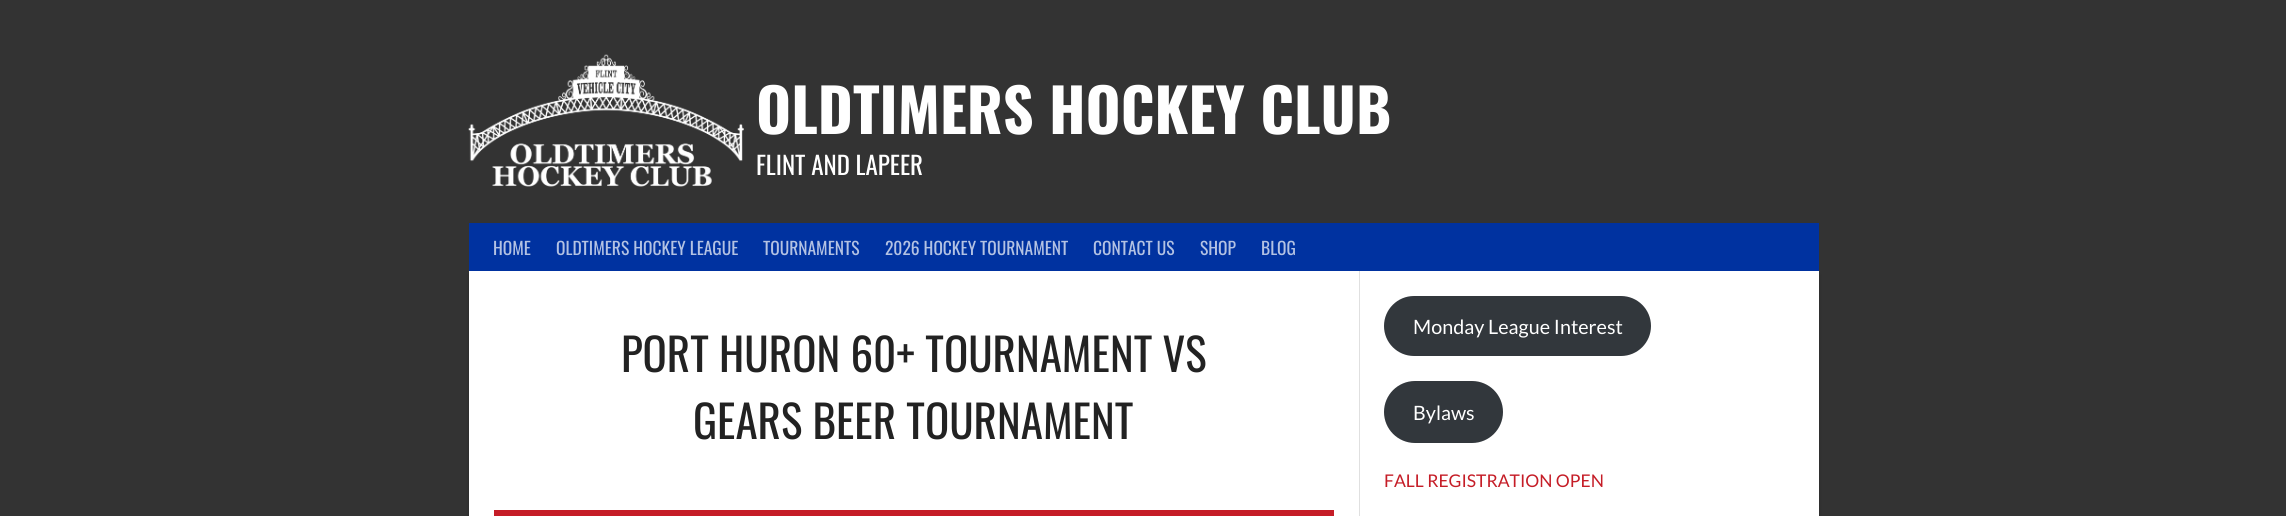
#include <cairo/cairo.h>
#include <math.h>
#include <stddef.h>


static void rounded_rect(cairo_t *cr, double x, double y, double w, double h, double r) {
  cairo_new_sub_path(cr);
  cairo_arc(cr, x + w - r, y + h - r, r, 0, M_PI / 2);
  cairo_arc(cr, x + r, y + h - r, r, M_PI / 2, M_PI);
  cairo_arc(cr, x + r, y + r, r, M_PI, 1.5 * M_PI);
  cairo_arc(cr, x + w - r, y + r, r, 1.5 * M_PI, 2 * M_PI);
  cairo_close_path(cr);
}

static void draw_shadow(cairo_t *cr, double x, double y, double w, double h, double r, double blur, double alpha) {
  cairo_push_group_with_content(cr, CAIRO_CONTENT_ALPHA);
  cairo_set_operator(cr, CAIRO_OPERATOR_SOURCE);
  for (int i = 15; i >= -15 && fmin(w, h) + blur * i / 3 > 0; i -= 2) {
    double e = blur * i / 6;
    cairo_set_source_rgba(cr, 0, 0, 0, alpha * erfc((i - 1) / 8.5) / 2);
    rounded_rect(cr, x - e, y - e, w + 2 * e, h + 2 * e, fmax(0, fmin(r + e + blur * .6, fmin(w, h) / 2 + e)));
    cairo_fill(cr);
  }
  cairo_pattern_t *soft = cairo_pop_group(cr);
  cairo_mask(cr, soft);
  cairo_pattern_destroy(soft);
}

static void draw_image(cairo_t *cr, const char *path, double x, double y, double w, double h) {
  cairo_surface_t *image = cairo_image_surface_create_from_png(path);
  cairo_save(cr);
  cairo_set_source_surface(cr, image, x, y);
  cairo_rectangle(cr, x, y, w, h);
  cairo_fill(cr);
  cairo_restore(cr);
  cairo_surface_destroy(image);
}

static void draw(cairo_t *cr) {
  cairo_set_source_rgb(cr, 51 / 255.0, 51 / 255.0, 51 / 255.0);
  cairo_paint(cr);
  draw_image(cr, "images/1.png", 468, 54, 276, 133);
  cairo_set_source_rgb(cr, 0, 0, 0);
  draw_shadow(cr, 469, 275, 1350, 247, 0, 2, 0.2);
  cairo_set_source_rgb(cr, 0, 50 / 255.0, 160 / 255.0);
  cairo_rectangle(cr, 469, 223, 1350, 48);
  cairo_fill(cr);
  cairo_set_source_rgb(cr, 1, 1, 1);
  cairo_rectangle(cr, 469, 271, 1350, 245);
  cairo_fill(cr);
  cairo_set_source_rgb(cr, 224 / 255.0, 224 / 255.0, 224 / 255.0);
  cairo_new_path(cr);
  cairo_move_to(cr, 470, 271);
  cairo_line_to(cr, 1359, 271);
  cairo_line_to(cr, 1359, 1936);
  cairo_line_to(cr, 1360, 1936);
  cairo_line_to(cr, 1360, 271);
  cairo_close_path(cr);
  cairo_fill(cr);
  cairo_set_source_rgb(cr, 197 / 255.0, 29 / 255.0, 39 / 255.0);
  cairo_rectangle(cr, 494, 510, 840, 6);
  cairo_fill(cr);
  cairo_set_source_rgb(cr, 50 / 255.0, 55 / 255.0, 60 / 255.0);
  rounded_rect(cr, 1384, 296, 267, 60, 30);
  cairo_fill(cr);
  rounded_rect(cr, 1384, 381, 119, 62, 31);
  cairo_fill(cr);
  cairo_select_font_face(cr, "Oswald", CAIRO_FONT_SLANT_NORMAL, CAIRO_FONT_WEIGHT_BOLD);
  cairo_set_font_size(cr, 60);
  cairo_set_source_rgb(cr, 1, 1, 1);
  cairo_move_to(cr, 756, 134);
  cairo_show_text(cr, "OLDTIMERS HOCKEY CLUB");
  cairo_select_font_face(cr, "Oswald", CAIRO_FONT_SLANT_NORMAL, CAIRO_FONT_WEIGHT_NORMAL);
  cairo_set_font_size(cr, 25);
  cairo_move_to(cr, 756, 175);
  cairo_show_text(cr, "FLINT AND LAPEER");
  cairo_set_font_size(cr, 17.5);
  cairo_set_source_rgb(cr, 179 / 255.0, 194 / 255.0, 227 / 255.0);
  cairo_move_to(cr, 493, 255);
  cairo_show_text(cr, "HOME");
  cairo_move_to(cr, 556, 255);
  cairo_show_text(cr, "OLDTIMERS HOCKEY LEAGUE");
  cairo_move_to(cr, 763, 255);
  cairo_show_text(cr, "TOURNAMENTS");
  cairo_move_to(cr, 885, 255);
  cairo_show_text(cr, "2026 HOCKEY TOURNAMENT");
  cairo_move_to(cr, 1093, 255);
  cairo_show_text(cr, "CONTACT US");
  cairo_move_to(cr, 1200, 255);
  cairo_show_text(cr, "SHOP");
  cairo_move_to(cr, 1261, 255);
  cairo_show_text(cr, "BLOG");
  cairo_set_font_size(cr, 45);
  cairo_set_source_rgb(cr, 34 / 255.0, 34 / 255.0, 34 / 255.0);
  cairo_move_to(cr, 621, 372);
  cairo_show_text(cr, "PORT HURON 60+ TOURNAMENT VS");
  cairo_move_to(cr, 693, 439);
  cairo_show_text(cr, "GEARS BEER TOURNAMENT");
  cairo_select_font_face(cr, "Lato", CAIRO_FONT_SLANT_NORMAL, CAIRO_FONT_WEIGHT_NORMAL);
  cairo_set_font_size(cr, 19.75);
  cairo_set_source_rgb(cr, 1, 1, 1);
  cairo_move_to(cr, 1413, 334);
  cairo_show_text(cr, "Monday League Interest");
  cairo_move_to(cr, 1413, 420);
  cairo_show_text(cr, "Bylaws");
  cairo_set_font_size(cr, 17.5);
  cairo_set_source_rgb(cr, 197 / 255.0, 29 / 255.0, 39 / 255.0);
  cairo_move_to(cr, 1384, 487);
  cairo_show_text(cr, "FALL REGISTRATION OPEN");
}

int main(void) {
  cairo_surface_t *surface = cairo_image_surface_create(CAIRO_FORMAT_RGB24, 2286, 516);
  cairo_t *cr = cairo_create(surface);
  cairo_font_options_t *options = cairo_font_options_create();
  cairo_font_options_set_hint_metrics(options, CAIRO_HINT_METRICS_OFF);
  cairo_font_options_set_hint_style(options, CAIRO_HINT_STYLE_NONE);
  cairo_set_font_options(cr, options);
  cairo_set_miter_limit(cr, 4);
  draw(cr);
  cairo_surface_write_to_png(surface, "out.png");
  cairo_font_options_destroy(options);
  cairo_destroy(cr);
  cairo_surface_destroy(surface);
  return 0;
}
